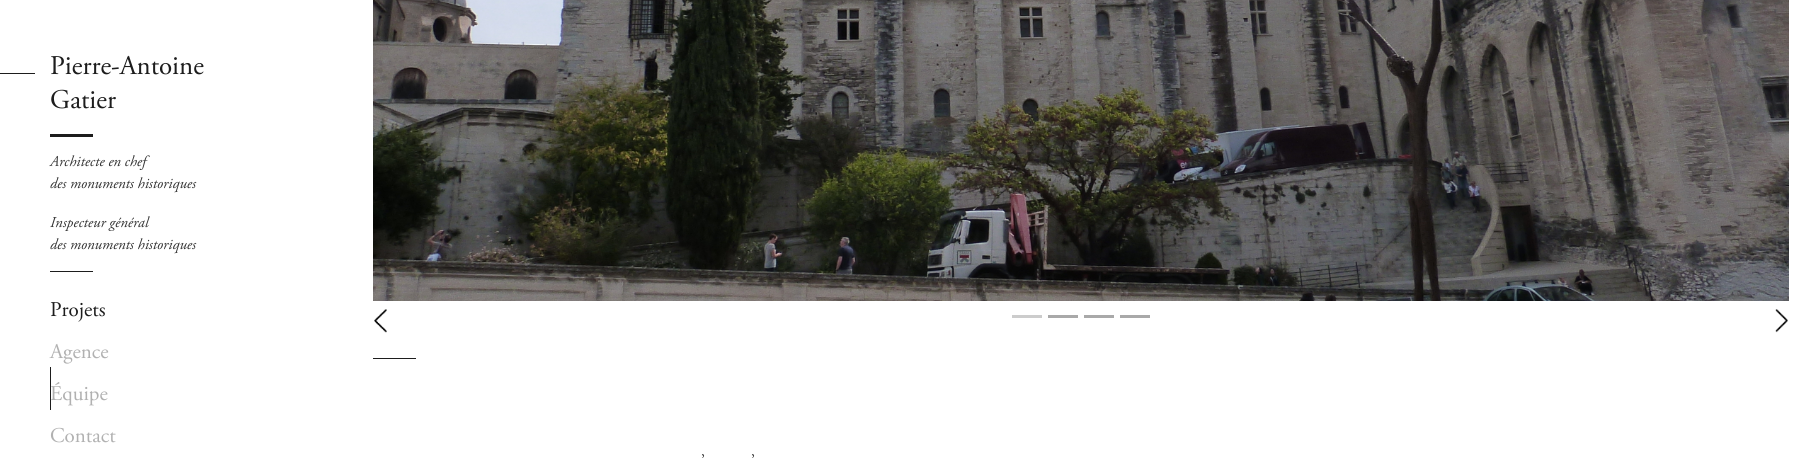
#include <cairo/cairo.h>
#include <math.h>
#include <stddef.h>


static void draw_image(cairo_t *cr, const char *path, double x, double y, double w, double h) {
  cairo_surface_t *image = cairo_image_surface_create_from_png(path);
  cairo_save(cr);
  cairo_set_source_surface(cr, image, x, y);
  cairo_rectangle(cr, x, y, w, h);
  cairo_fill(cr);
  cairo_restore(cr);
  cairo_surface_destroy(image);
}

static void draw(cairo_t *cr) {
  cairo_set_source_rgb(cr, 1, 1, 1);
  cairo_paint(cr);
  cairo_set_source_rgb(cr, 29 / 255.0, 29 / 255.0, 29 / 255.0);
  cairo_rectangle(cr, 0, 73, 35, 1);
  cairo_fill(cr);
  cairo_rectangle(cr, 50, 134, 43, 3);
  cairo_fill(cr);
  cairo_rectangle(cr, 50, 271, 43, 1);
  cairo_fill(cr);
  draw_image(cr, "images/1.png", 373, 0, 1416, 301);
  draw_image(cr, "images/2.png", 374, 309, 13, 24);
  cairo_set_source_rgb(cr, 204 / 255.0, 204 / 255.0, 204 / 255.0);
  cairo_rectangle(cr, 1012, 315, 30, 3);
  cairo_fill(cr);
  cairo_set_source_rgb(cr, 169 / 255.0, 169 / 255.0, 169 / 255.0);
  cairo_rectangle(cr, 1048, 315, 30, 3);
  cairo_fill(cr);
  cairo_rectangle(cr, 1084, 315, 30, 3);
  cairo_fill(cr);
  cairo_rectangle(cr, 1120, 315, 30, 3);
  cairo_fill(cr);
  draw_image(cr, "images/3.png", 1775, 309, 13, 24);
  cairo_set_source_rgb(cr, 29 / 255.0, 29 / 255.0, 29 / 255.0);
  cairo_rectangle(cr, 373, 358, 43, 1);
  cairo_fill(cr);
  cairo_select_font_face(cr, "Adobe Garamond", CAIRO_FONT_SLANT_NORMAL, CAIRO_FONT_WEIGHT_NORMAL);
  cairo_set_font_size(cr, 27);
  cairo_move_to(cr, 50, 74);
  cairo_show_text(cr, "Pierre-Antoine");
  cairo_move_to(cr, 50, 108);
  cairo_show_text(cr, "Gatier");
  cairo_select_font_face(cr, "Adobe Garamond", CAIRO_FONT_SLANT_ITALIC, CAIRO_FONT_WEIGHT_NORMAL);
  cairo_set_font_size(cr, 15);
  cairo_set_source_rgb(cr, 51 / 255.0, 51 / 255.0, 51 / 255.0);
  cairo_move_to(cr, 50, 166);
  cairo_show_text(cr, "Architecte en chef");
  cairo_move_to(cr, 50, 188);
  cairo_show_text(cr, "des monuments historiques");
  cairo_move_to(cr, 50, 227);
  cairo_show_text(cr, "Inspecteur général");
  cairo_move_to(cr, 50, 249);
  cairo_show_text(cr, "des monuments historiques");
  cairo_select_font_face(cr, "Adobe Garamond", CAIRO_FONT_SLANT_NORMAL, CAIRO_FONT_WEIGHT_NORMAL);
  cairo_set_font_size(cr, 21);
  cairo_set_source_rgb(cr, 29 / 255.0, 29 / 255.0, 29 / 255.0);
  cairo_move_to(cr, 50, 316);
  cairo_show_text(cr, "Projets");
  cairo_set_source_rgb(cr, 177 / 255.0, 177 / 255.0, 177 / 255.0);
  cairo_move_to(cr, 50, 358);
  cairo_show_text(cr, "Agence");
  cairo_move_to(cr, 50, 400);
  cairo_show_text(cr, "Équipe");
  cairo_move_to(cr, 50, 442);
  cairo_show_text(cr, "Contact");
  cairo_set_source_rgb(cr, 29 / 255.0, 29 / 255.0, 29 / 255.0);
  cairo_rectangle(cr, 50, 367, 1, 43);
  cairo_fill(cr);
  cairo_set_font_size(cr, 17);
  cairo_set_source_rgb(cr, 51 / 255.0, 51 / 255.0, 51 / 255.0);
  cairo_move_to(cr, 701, 466);
  cairo_show_text(cr, "’");
  cairo_move_to(cr, 751, 466);
  cairo_show_text(cr, "’");
}

int main(void) {
  cairo_surface_t *surface = cairo_image_surface_create(CAIRO_FORMAT_RGB24, 1799, 460);
  cairo_t *cr = cairo_create(surface);
  cairo_font_options_t *options = cairo_font_options_create();
  cairo_font_options_set_hint_metrics(options, CAIRO_HINT_METRICS_OFF);
  cairo_font_options_set_hint_style(options, CAIRO_HINT_STYLE_NONE);
  cairo_set_font_options(cr, options);
  cairo_set_miter_limit(cr, 4);
  draw(cr);
  cairo_surface_write_to_png(surface, "out.png");
  cairo_font_options_destroy(options);
  cairo_destroy(cr);
  cairo_surface_destroy(surface);
  return 0;
}
